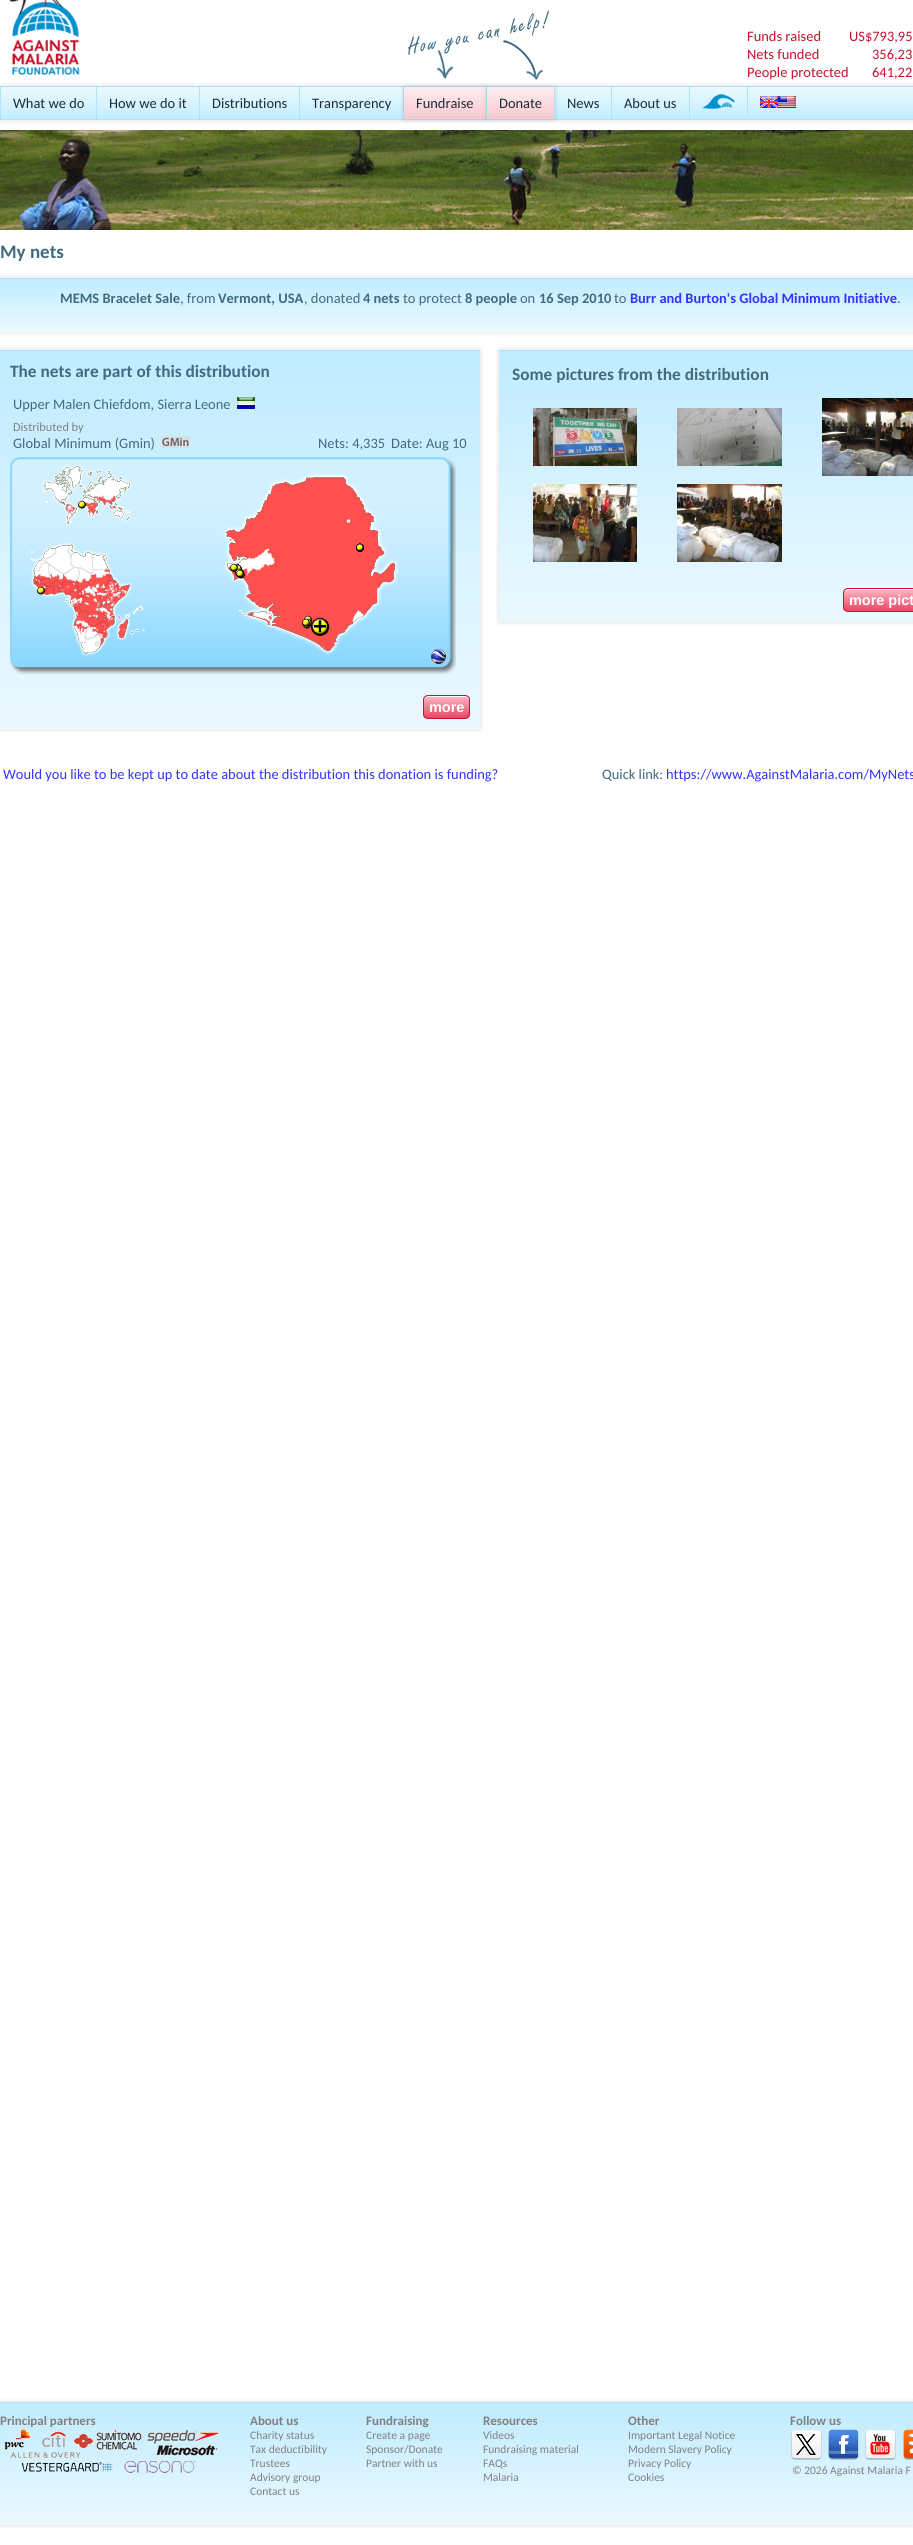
#include <cairo/cairo.h>
#include <math.h>
#include <stddef.h>


static void rounded_rect(cairo_t *cr, double x, double y, double w, double h, double r) {
  cairo_new_sub_path(cr);
  cairo_arc(cr, x + w - r, y + h - r, r, 0, M_PI / 2);
  cairo_arc(cr, x + r, y + h - r, r, M_PI / 2, M_PI);
  cairo_arc(cr, x + r, y + r, r, M_PI, 1.5 * M_PI);
  cairo_arc(cr, x + w - r, y + r, r, 1.5 * M_PI, 2 * M_PI);
  cairo_close_path(cr);
}

static void draw_shadow(cairo_t *cr, double x, double y, double w, double h, double r, double blur, double alpha) {
  cairo_push_group_with_content(cr, CAIRO_CONTENT_ALPHA);
  cairo_set_operator(cr, CAIRO_OPERATOR_SOURCE);
  for (int i = 15; i >= -15 && fmin(w, h) + blur * i / 3 > 0; i -= 2) {
    double e = blur * i / 6;
    cairo_set_source_rgba(cr, 0, 0, 0, alpha * erfc((i - 1) / 8.5) / 2);
    rounded_rect(cr, x - e, y - e, w + 2 * e, h + 2 * e, fmax(0, fmin(r + e + blur * .6, fmin(w, h) / 2 + e)));
    cairo_fill(cr);
  }
  cairo_pattern_t *soft = cairo_pop_group(cr);
  cairo_mask(cr, soft);
  cairo_pattern_destroy(soft);
}

static void draw_image(cairo_t *cr, const char *path, double x, double y, double w, double h) {
  cairo_surface_t *image = cairo_image_surface_create_from_png(path);
  cairo_save(cr);
  cairo_set_source_surface(cr, image, x, y);
  cairo_rectangle(cr, x, y, w, h);
  cairo_fill(cr);
  cairo_restore(cr);
  cairo_surface_destroy(image);
}

static void draw(cairo_t *cr) {
  cairo_pattern_t *gradient;
  cairo_set_source_rgb(cr, 1, 1, 1);
  cairo_paint(cr);
  draw_image(cr, "images/1.png", 9, 0, 71, 75);
  cairo_set_source_rgb(cr, 0, 0, 0);
  draw_shadow(cr, 0, 86, 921, 34, 0, 2.5, 0.15);
  gradient = cairo_pattern_create_linear(1, 87, 1, 119);
  cairo_pattern_add_color_stop_rgba(gradient, 0.05, 235 / 255.0, 249 / 255.0, 1, 1);
  cairo_pattern_add_color_stop_rgba(gradient, 1, 194 / 255.0, 236 / 255.0, 1, 1);
  cairo_set_source(cr, gradient);
  cairo_pattern_destroy(gradient);
  cairo_rectangle(cr, 1, 87, 912, 32);
  cairo_fill(cr);
  cairo_rectangle(cr, 0.5, 86.5, 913, 33);
  cairo_set_source_rgb(cr, 171 / 255.0, 228 / 255.0, 1);
  cairo_set_line_width(cr, 1);
  cairo_stroke(cr);
  cairo_rectangle(cr, 403, 87, 1, 32);
  cairo_fill(cr);
  cairo_set_source_rgb(cr, 0, 0, 0);
  draw_shadow(cr, 404, 87, 83, 32, 0, 2.5, 0.15);
  gradient = cairo_pattern_create_linear(404, 87, 404, 119);
  cairo_pattern_add_color_stop_rgba(gradient, 0.05, 253 / 255.0, 236 / 255.0, 239 / 255.0, 1);
  cairo_pattern_add_color_stop_rgba(gradient, 1, 250 / 255.0, 199 / 255.0, 207 / 255.0, 1);
  cairo_set_source(cr, gradient);
  cairo_pattern_destroy(gradient);
  cairo_rectangle(cr, 404, 87, 82, 32);
  cairo_fill(cr);
  cairo_set_source_rgb(cr, 171 / 255.0, 228 / 255.0, 1);
  cairo_rectangle(cr, 486, 87, 1, 32);
  cairo_fill(cr);
  cairo_set_source_rgb(cr, 0, 0, 0);
  draw_shadow(cr, 487, 87, 68, 32, 0, 2.5, 0.15);
  draw_image(cr, "images/2.png", 407, 10, 142, 70);
  cairo_set_source_rgb(cr, 171 / 255.0, 228 / 255.0, 1);
  cairo_rectangle(cr, 96, 87, 1, 32);
  cairo_fill(cr);
  cairo_rectangle(cr, 199, 87, 1, 32);
  cairo_fill(cr);
  cairo_rectangle(cr, 299, 87, 1, 32);
  cairo_fill(cr);
  gradient = cairo_pattern_create_linear(487, 87, 487, 119);
  cairo_pattern_add_color_stop_rgba(gradient, 0.05, 253 / 255.0, 236 / 255.0, 239 / 255.0, 1);
  cairo_pattern_add_color_stop_rgba(gradient, 1, 250 / 255.0, 199 / 255.0, 207 / 255.0, 1);
  cairo_set_source(cr, gradient);
  cairo_pattern_destroy(gradient);
  cairo_rectangle(cr, 487, 87, 67, 32);
  cairo_fill(cr);
  cairo_set_source_rgb(cr, 171 / 255.0, 228 / 255.0, 1);
  cairo_rectangle(cr, 554, 87, 1, 32);
  cairo_fill(cr);
  cairo_rectangle(cr, 611, 87, 1, 32);
  cairo_fill(cr);
  cairo_rectangle(cr, 689, 87, 1, 32);
  cairo_fill(cr);
  cairo_rectangle(cr, 747, 87, 1, 29);
  cairo_fill(cr);
  draw_image(cr, "images/3.png", 702, 94, 33, 15);
  draw_image(cr, "images/4.png", 760, 96, 18, 12);
  draw_image(cr, "images/5.png", 778, 96, 18, 12);
  draw_image(cr, "images/6.png", 0, 130, 913, 100);
  cairo_set_source_rgb(cr, 0, 0, 0);
  draw_shadow(cr, 0, 278, 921, 54, 0, 2.5, 0.15);
  gradient = cairo_pattern_create_linear(0, 279, 0, 332);
  cairo_pattern_add_color_stop_rgba(gradient, 0.05, 194 / 255.0, 236 / 255.0, 1, 1);
  cairo_pattern_add_color_stop_rgba(gradient, 1, 235 / 255.0, 249 / 255.0, 1, 1);
  cairo_set_source(cr, gradient);
  cairo_pattern_destroy(gradient);
  cairo_rectangle(cr, 0, 279, 913, 53);
  cairo_fill(cr);
  cairo_set_source_rgb(cr, 171 / 255.0, 228 / 255.0, 1);
  cairo_rectangle(cr, 0, 278, 913, 1);
  cairo_fill(cr);
  cairo_set_source_rgb(cr, 0, 0, 0);
  draw_shadow(cr, 0, 350, 480, 379, 0, 2.5, 0.15);
  gradient = cairo_pattern_create_linear(0, 351, 0, 729);
  cairo_pattern_add_color_stop_rgba(gradient, 0.05, 194 / 255.0, 236 / 255.0, 1, 1);
  cairo_pattern_add_color_stop_rgba(gradient, 1, 235 / 255.0, 249 / 255.0, 1, 1);
  cairo_set_source(cr, gradient);
  cairo_pattern_destroy(gradient);
  cairo_rectangle(cr, 0, 351, 480, 378);
  cairo_fill(cr);
  cairo_set_source_rgb(cr, 171 / 255.0, 228 / 255.0, 1);
  cairo_rectangle(cr, 0, 350, 480, 1);
  cairo_fill(cr);
  draw_image(cr, "images/7.png", 237, 397, 18, 12);
  draw_image(cr, "images/8.png", 161, 436, 29, 12);
  draw_image(cr, "images/9.png", 10, 457, 446, 218);
  cairo_save(cr);
  rounded_rect(cr, 423, 695, 47, 24, 5);
  cairo_clip(cr);
  gradient = cairo_pattern_create_linear(424, 696, 424, 718);
  cairo_pattern_add_color_stop_rgba(gradient, 0.05, 248 / 255.0, 180 / 255.0, 192 / 255.0, 1);
  cairo_pattern_add_color_stop_rgba(gradient, 1, 238 / 255.0, 68 / 255.0, 97 / 255.0, 1);
  cairo_set_source(cr, gradient);
  cairo_pattern_destroy(gradient);
  cairo_rectangle(cr, 423, 696, 47, 22);
  cairo_fill(cr);
  cairo_restore(cr);
  cairo_set_source_rgb(cr, 1, 1, 1);
  cairo_new_path(cr);
  cairo_move_to(cr, 428, 697);
  cairo_line_to(cr, 465, 697);
  cairo_curve_to(cr, 467, 697, 469, 699, 469, 701);
  cairo_curve_to(cr, 469, 695, 464, 696, 459, 696);
  cairo_line_to(cr, 434, 696);
  cairo_curve_to(cr, 429, 696, 424, 695, 424, 701);
  cairo_curve_to(cr, 424, 699, 426, 697, 428, 697);
  cairo_close_path(cr);
  cairo_fill(cr);
  rounded_rect(cr, 423.5, 695.5, 46, 23, 4.5);
  cairo_set_source_rgb(cr, 197 / 255.0, 18 / 255.0, 48 / 255.0);
  cairo_stroke(cr);
  cairo_set_source_rgb(cr, 0, 0, 0);
  draw_shadow(cr, 499, 350, 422, 272, 0, 2.5, 0.15);
  gradient = cairo_pattern_create_linear(499, 351, 499, 622);
  cairo_pattern_add_color_stop_rgba(gradient, 0.05, 194 / 255.0, 236 / 255.0, 1, 1);
  cairo_pattern_add_color_stop_rgba(gradient, 1, 235 / 255.0, 249 / 255.0, 1, 1);
  cairo_set_source(cr, gradient);
  cairo_pattern_destroy(gradient);
  cairo_rectangle(cr, 499, 351, 414, 271);
  cairo_fill(cr);
  cairo_set_source_rgb(cr, 171 / 255.0, 228 / 255.0, 1);
  cairo_rectangle(cr, 499, 350, 414, 1);
  cairo_fill(cr);
  draw_image(cr, "images/10.png", 533, 408, 104, 58);
  draw_image(cr, "images/11.png", 677, 408, 105, 58);
  draw_image(cr, "images/12.png", 822, 398, 91, 78);
  draw_image(cr, "images/13.png", 533, 484, 104, 78);
  draw_image(cr, "images/14.png", 677, 484, 105, 78);
  cairo_save(cr);
  rounded_rect(cr, 843, 588, 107, 24, 5);
  cairo_clip(cr);
  gradient = cairo_pattern_create_linear(844, 589, 844, 611);
  cairo_pattern_add_color_stop_rgba(gradient, 0.05, 248 / 255.0, 180 / 255.0, 192 / 255.0, 1);
  cairo_pattern_add_color_stop_rgba(gradient, 1, 238 / 255.0, 68 / 255.0, 97 / 255.0, 1);
  cairo_set_source(cr, gradient);
  cairo_pattern_destroy(gradient);
  cairo_rectangle(cr, 843, 589, 70, 22);
  cairo_fill(cr);
  cairo_restore(cr);
  cairo_set_source_rgb(cr, 1, 1, 1);
  cairo_new_path(cr);
  cairo_move_to(cr, 848, 590);
  cairo_line_to(cr, 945, 590);
  cairo_curve_to(cr, 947, 590, 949, 592, 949, 594);
  cairo_curve_to(cr, 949, 585, 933, 589, 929, 589);
  cairo_line_to(cr, 864, 589);
  cairo_curve_to(cr, 860, 589, 844, 585, 844, 594);
  cairo_curve_to(cr, 844, 592, 846, 590, 848, 590);
  cairo_close_path(cr);
  cairo_fill(cr);
  rounded_rect(cr, 843.5, 588.5, 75, 23, 4.5);
  cairo_set_source_rgb(cr, 197 / 255.0, 18 / 255.0, 48 / 255.0);
  cairo_stroke(cr);
  cairo_set_source_rgb(cr, 0, 0, 0);
  draw_shadow(cr, 0, 2402, 913, 123, 0, 2.5, 0.15);
  gradient = cairo_pattern_create_linear(0, 2403, 0, 2525);
  cairo_pattern_add_color_stop_rgba(gradient, 0.05, 194 / 255.0, 236 / 255.0, 1, 1);
  cairo_pattern_add_color_stop_rgba(gradient, 1, 235 / 255.0, 249 / 255.0, 1, 1);
  cairo_set_source(cr, gradient);
  cairo_pattern_destroy(gradient);
  cairo_rectangle(cr, 0, 2403, 913, 122);
  cairo_fill(cr);
  cairo_set_source_rgb(cr, 171 / 255.0, 228 / 255.0, 1);
  cairo_rectangle(cr, 0, 2402, 913, 1);
  cairo_fill(cr);
  draw_image(cr, "images/15.png", 4, 2429, 215, 44);
  draw_image(cr, "images/16.png", 791, 2429, 31, 31);
  draw_image(cr, "images/17.png", 828, 2429, 31, 31);
  draw_image(cr, "images/18.png", 865, 2429, 31, 31);
  draw_image(cr, "images/19.png", 903, 2429, 10, 31);
  cairo_select_font_face(cr, "Carlito", CAIRO_FONT_SLANT_NORMAL, CAIRO_FONT_WEIGHT_NORMAL);
  cairo_set_font_size(cr, 14.45);
  cairo_set_source_rgb(cr, 197 / 255.0, 18 / 255.0, 48 / 255.0);
  cairo_move_to(cr, 747, 41);
  cairo_show_text(cr, "Funds raised");
  cairo_move_to(cr, 849, 41);
  cairo_show_text(cr, "US$793,95");
  cairo_move_to(cr, 747, 59);
  cairo_show_text(cr, "Nets funded");
  cairo_move_to(cr, 872, 59);
  cairo_show_text(cr, "356,23");
  cairo_move_to(cr, 747, 77);
  cairo_show_text(cr, "People protected");
  cairo_move_to(cr, 872, 77);
  cairo_show_text(cr, "641,22");
  cairo_set_source_rgb(cr, 27 / 255.0, 45 / 255.0, 54 / 255.0);
  cairo_move_to(cr, 13, 108);
  cairo_show_text(cr, "What we do");
  cairo_move_to(cr, 109, 108);
  cairo_show_text(cr, "How we do it");
  cairo_move_to(cr, 212, 108);
  cairo_show_text(cr, "Distributions");
  cairo_move_to(cr, 312, 108);
  cairo_show_text(cr, "Transparency");
  cairo_move_to(cr, 416, 108);
  cairo_show_text(cr, "Fundraise");
  cairo_move_to(cr, 499, 108);
  cairo_show_text(cr, "Donate");
  cairo_move_to(cr, 567, 108);
  cairo_show_text(cr, "News");
  cairo_move_to(cr, 624, 108);
  cairo_show_text(cr, "About us");
  cairo_select_font_face(cr, "Carlito", CAIRO_FONT_SLANT_NORMAL, CAIRO_FONT_WEIGHT_BOLD);
  cairo_set_font_size(cr, 19);
  cairo_set_source_rgb(cr, 64 / 255.0, 107 / 255.0, 128 / 255.0);
  cairo_move_to(cr, 0, 258);
  cairo_show_text(cr, "My nets");
  cairo_set_font_size(cr, 14.45);
  cairo_move_to(cr, 60, 303);
  cairo_show_text(cr, "MEMS Bracelet Sale");
  cairo_select_font_face(cr, "Carlito", CAIRO_FONT_SLANT_NORMAL, CAIRO_FONT_WEIGHT_NORMAL);
  cairo_move_to(cr, 180, 303);
  cairo_show_text(cr, ", from");
  cairo_select_font_face(cr, "Carlito", CAIRO_FONT_SLANT_NORMAL, CAIRO_FONT_WEIGHT_BOLD);
  cairo_move_to(cr, 218, 303);
  cairo_show_text(cr, "Vermont, USA");
  cairo_select_font_face(cr, "Carlito", CAIRO_FONT_SLANT_NORMAL, CAIRO_FONT_WEIGHT_NORMAL);
  cairo_move_to(cr, 304, 303);
  cairo_show_text(cr, ", donated");
  cairo_select_font_face(cr, "Carlito", CAIRO_FONT_SLANT_NORMAL, CAIRO_FONT_WEIGHT_BOLD);
  cairo_move_to(cr, 363, 303);
  cairo_show_text(cr, "4 nets");
  cairo_select_font_face(cr, "Carlito", CAIRO_FONT_SLANT_NORMAL, CAIRO_FONT_WEIGHT_NORMAL);
  cairo_move_to(cr, 403, 303);
  cairo_show_text(cr, "to protect");
  cairo_select_font_face(cr, "Carlito", CAIRO_FONT_SLANT_NORMAL, CAIRO_FONT_WEIGHT_BOLD);
  cairo_move_to(cr, 465, 303);
  cairo_show_text(cr, "8 people");
  cairo_select_font_face(cr, "Carlito", CAIRO_FONT_SLANT_NORMAL, CAIRO_FONT_WEIGHT_NORMAL);
  cairo_move_to(cr, 520, 303);
  cairo_show_text(cr, "on");
  cairo_select_font_face(cr, "Carlito", CAIRO_FONT_SLANT_NORMAL, CAIRO_FONT_WEIGHT_BOLD);
  cairo_move_to(cr, 539, 303);
  cairo_show_text(cr, "16 Sep 2010");
  cairo_select_font_face(cr, "Carlito", CAIRO_FONT_SLANT_NORMAL, CAIRO_FONT_WEIGHT_NORMAL);
  cairo_move_to(cr, 614, 303);
  cairo_show_text(cr, "to");
  cairo_select_font_face(cr, "Carlito", CAIRO_FONT_SLANT_NORMAL, CAIRO_FONT_WEIGHT_BOLD);
  cairo_set_source_rgb(cr, 51 / 255.0, 51 / 255.0, 1);
  cairo_move_to(cr, 630, 303);
  cairo_show_text(cr, "Burr and Burton's Global Minimum Initiative");
  cairo_select_font_face(cr, "Carlito", CAIRO_FONT_SLANT_NORMAL, CAIRO_FONT_WEIGHT_NORMAL);
  cairo_set_source_rgb(cr, 64 / 255.0, 107 / 255.0, 128 / 255.0);
  cairo_move_to(cr, 897, 303);
  cairo_show_text(cr, ".");
  cairo_select_font_face(cr, "Carlito", CAIRO_FONT_SLANT_NORMAL, CAIRO_FONT_WEIGHT_BOLD);
  cairo_set_font_size(cr, 17.3);
  cairo_move_to(cr, 10, 377);
  cairo_show_text(cr, "The nets are part of this distribution");
  cairo_select_font_face(cr, "Carlito", CAIRO_FONT_SLANT_NORMAL, CAIRO_FONT_WEIGHT_NORMAL);
  cairo_set_font_size(cr, 14.45);
  cairo_move_to(cr, 13, 409);
  cairo_show_text(cr, "Upper Malen Chiefdom, Sierra Leone");
  cairo_set_font_size(cr, 12.25);
  cairo_set_source_rgb(cr, 128 / 255.0, 128 / 255.0, 128 / 255.0);
  cairo_move_to(cr, 13, 431);
  cairo_show_text(cr, "Distributed by");
  cairo_set_font_size(cr, 14.45);
  cairo_set_source_rgb(cr, 64 / 255.0, 107 / 255.0, 128 / 255.0);
  cairo_move_to(cr, 13, 448);
  cairo_show_text(cr, "Global Minimum (Gmin)");
  cairo_move_to(cr, 318, 448);
  cairo_show_text(cr, "Nets: 4,335");
  cairo_move_to(cr, 391, 448);
  cairo_show_text(cr, "Date: Aug 10");
  cairo_select_font_face(cr, "Liberation Sans", CAIRO_FONT_SLANT_NORMAL, CAIRO_FONT_WEIGHT_BOLD);
  cairo_set_source_rgb(cr, 1, 1, 1);
  cairo_move_to(cr, 429, 712);
  cairo_show_text(cr, "more");
  cairo_select_font_face(cr, "Carlito", CAIRO_FONT_SLANT_NORMAL, CAIRO_FONT_WEIGHT_BOLD);
  cairo_set_font_size(cr, 17.3);
  cairo_set_source_rgb(cr, 64 / 255.0, 107 / 255.0, 128 / 255.0);
  cairo_move_to(cr, 512, 380);
  cairo_show_text(cr, "Some pictures from the distribution");
  cairo_select_font_face(cr, "Liberation Sans", CAIRO_FONT_SLANT_NORMAL, CAIRO_FONT_WEIGHT_BOLD);
  cairo_set_font_size(cr, 14.45);
  cairo_set_source_rgb(cr, 1, 1, 1);
  cairo_move_to(cr, 849, 605);
  cairo_show_text(cr, "more pict");
  cairo_select_font_face(cr, "Carlito", CAIRO_FONT_SLANT_NORMAL, CAIRO_FONT_WEIGHT_NORMAL);
  cairo_set_source_rgb(cr, 51 / 255.0, 51 / 255.0, 1);
  cairo_move_to(cr, 3, 779);
  cairo_show_text(cr, "Would you like to be kept up to date about the distribution this donation is funding?");
  cairo_set_source_rgb(cr, 64 / 255.0, 107 / 255.0, 128 / 255.0);
  cairo_move_to(cr, 602, 779);
  cairo_show_text(cr, "Quick link:");
  cairo_set_source_rgb(cr, 51 / 255.0, 51 / 255.0, 1);
  cairo_move_to(cr, 666, 779);
  cairo_show_text(cr, "https://www.AgainstMalaria.com/MyNets");
  cairo_select_font_face(cr, "Carlito", CAIRO_FONT_SLANT_NORMAL, CAIRO_FONT_WEIGHT_BOLD);
  cairo_set_font_size(cr, 13);
  cairo_set_source_rgb(cr, 128 / 255.0, 128 / 255.0, 128 / 255.0);
  cairo_move_to(cr, 0, 2425);
  cairo_show_text(cr, "Principal partners");
  cairo_move_to(cr, 250, 2425);
  cairo_show_text(cr, "About us");
  cairo_move_to(cr, 366, 2425);
  cairo_show_text(cr, "Fundraising");
  cairo_move_to(cr, 483, 2425);
  cairo_show_text(cr, "Resources");
  cairo_move_to(cr, 628, 2425);
  cairo_show_text(cr, "Other");
  cairo_move_to(cr, 790, 2425);
  cairo_show_text(cr, "Follow us");
  cairo_select_font_face(cr, "Carlito", CAIRO_FONT_SLANT_NORMAL, CAIRO_FONT_WEIGHT_NORMAL);
  cairo_set_font_size(cr, 11.5);
  cairo_move_to(cr, 250, 2439);
  cairo_show_text(cr, "Charity status");
  cairo_move_to(cr, 250, 2453);
  cairo_show_text(cr, "Tax deductibility");
  cairo_move_to(cr, 250, 2467);
  cairo_show_text(cr, "Trustees");
  cairo_move_to(cr, 250, 2481);
  cairo_show_text(cr, "Advisory group");
  cairo_move_to(cr, 250, 2495);
  cairo_show_text(cr, "Contact us");
  cairo_move_to(cr, 366, 2439);
  cairo_show_text(cr, "Create a page");
  cairo_move_to(cr, 366, 2453);
  cairo_show_text(cr, "Sponsor/Donate");
  cairo_move_to(cr, 366, 2467);
  cairo_show_text(cr, "Partner with us");
  cairo_move_to(cr, 483, 2439);
  cairo_show_text(cr, "Videos");
  cairo_move_to(cr, 483, 2453);
  cairo_show_text(cr, "Fundraising material");
  cairo_move_to(cr, 483, 2467);
  cairo_show_text(cr, "FAQs");
  cairo_move_to(cr, 483, 2481);
  cairo_show_text(cr, "Malaria");
  cairo_move_to(cr, 628, 2439);
  cairo_show_text(cr, "Important Legal Notice");
  cairo_move_to(cr, 628, 2453);
  cairo_show_text(cr, "Modern Slavery Policy");
  cairo_move_to(cr, 628, 2467);
  cairo_show_text(cr, "Privacy Policy");
  cairo_move_to(cr, 628, 2481);
  cairo_show_text(cr, "Cookies");
  cairo_move_to(cr, 792, 2474);
  cairo_show_text(cr, "© 2026 Against Malaria F");
}

int main(void) {
  cairo_surface_t *surface = cairo_image_surface_create(CAIRO_FORMAT_RGB24, 913, 2545);
  cairo_t *cr = cairo_create(surface);
  cairo_font_options_t *options = cairo_font_options_create();
  cairo_font_options_set_hint_metrics(options, CAIRO_HINT_METRICS_OFF);
  cairo_font_options_set_hint_style(options, CAIRO_HINT_STYLE_NONE);
  cairo_set_font_options(cr, options);
  cairo_set_miter_limit(cr, 4);
  draw(cr);
  cairo_surface_write_to_png(surface, "out.png");
  cairo_font_options_destroy(options);
  cairo_destroy(cr);
  cairo_surface_destroy(surface);
  return 0;
}
